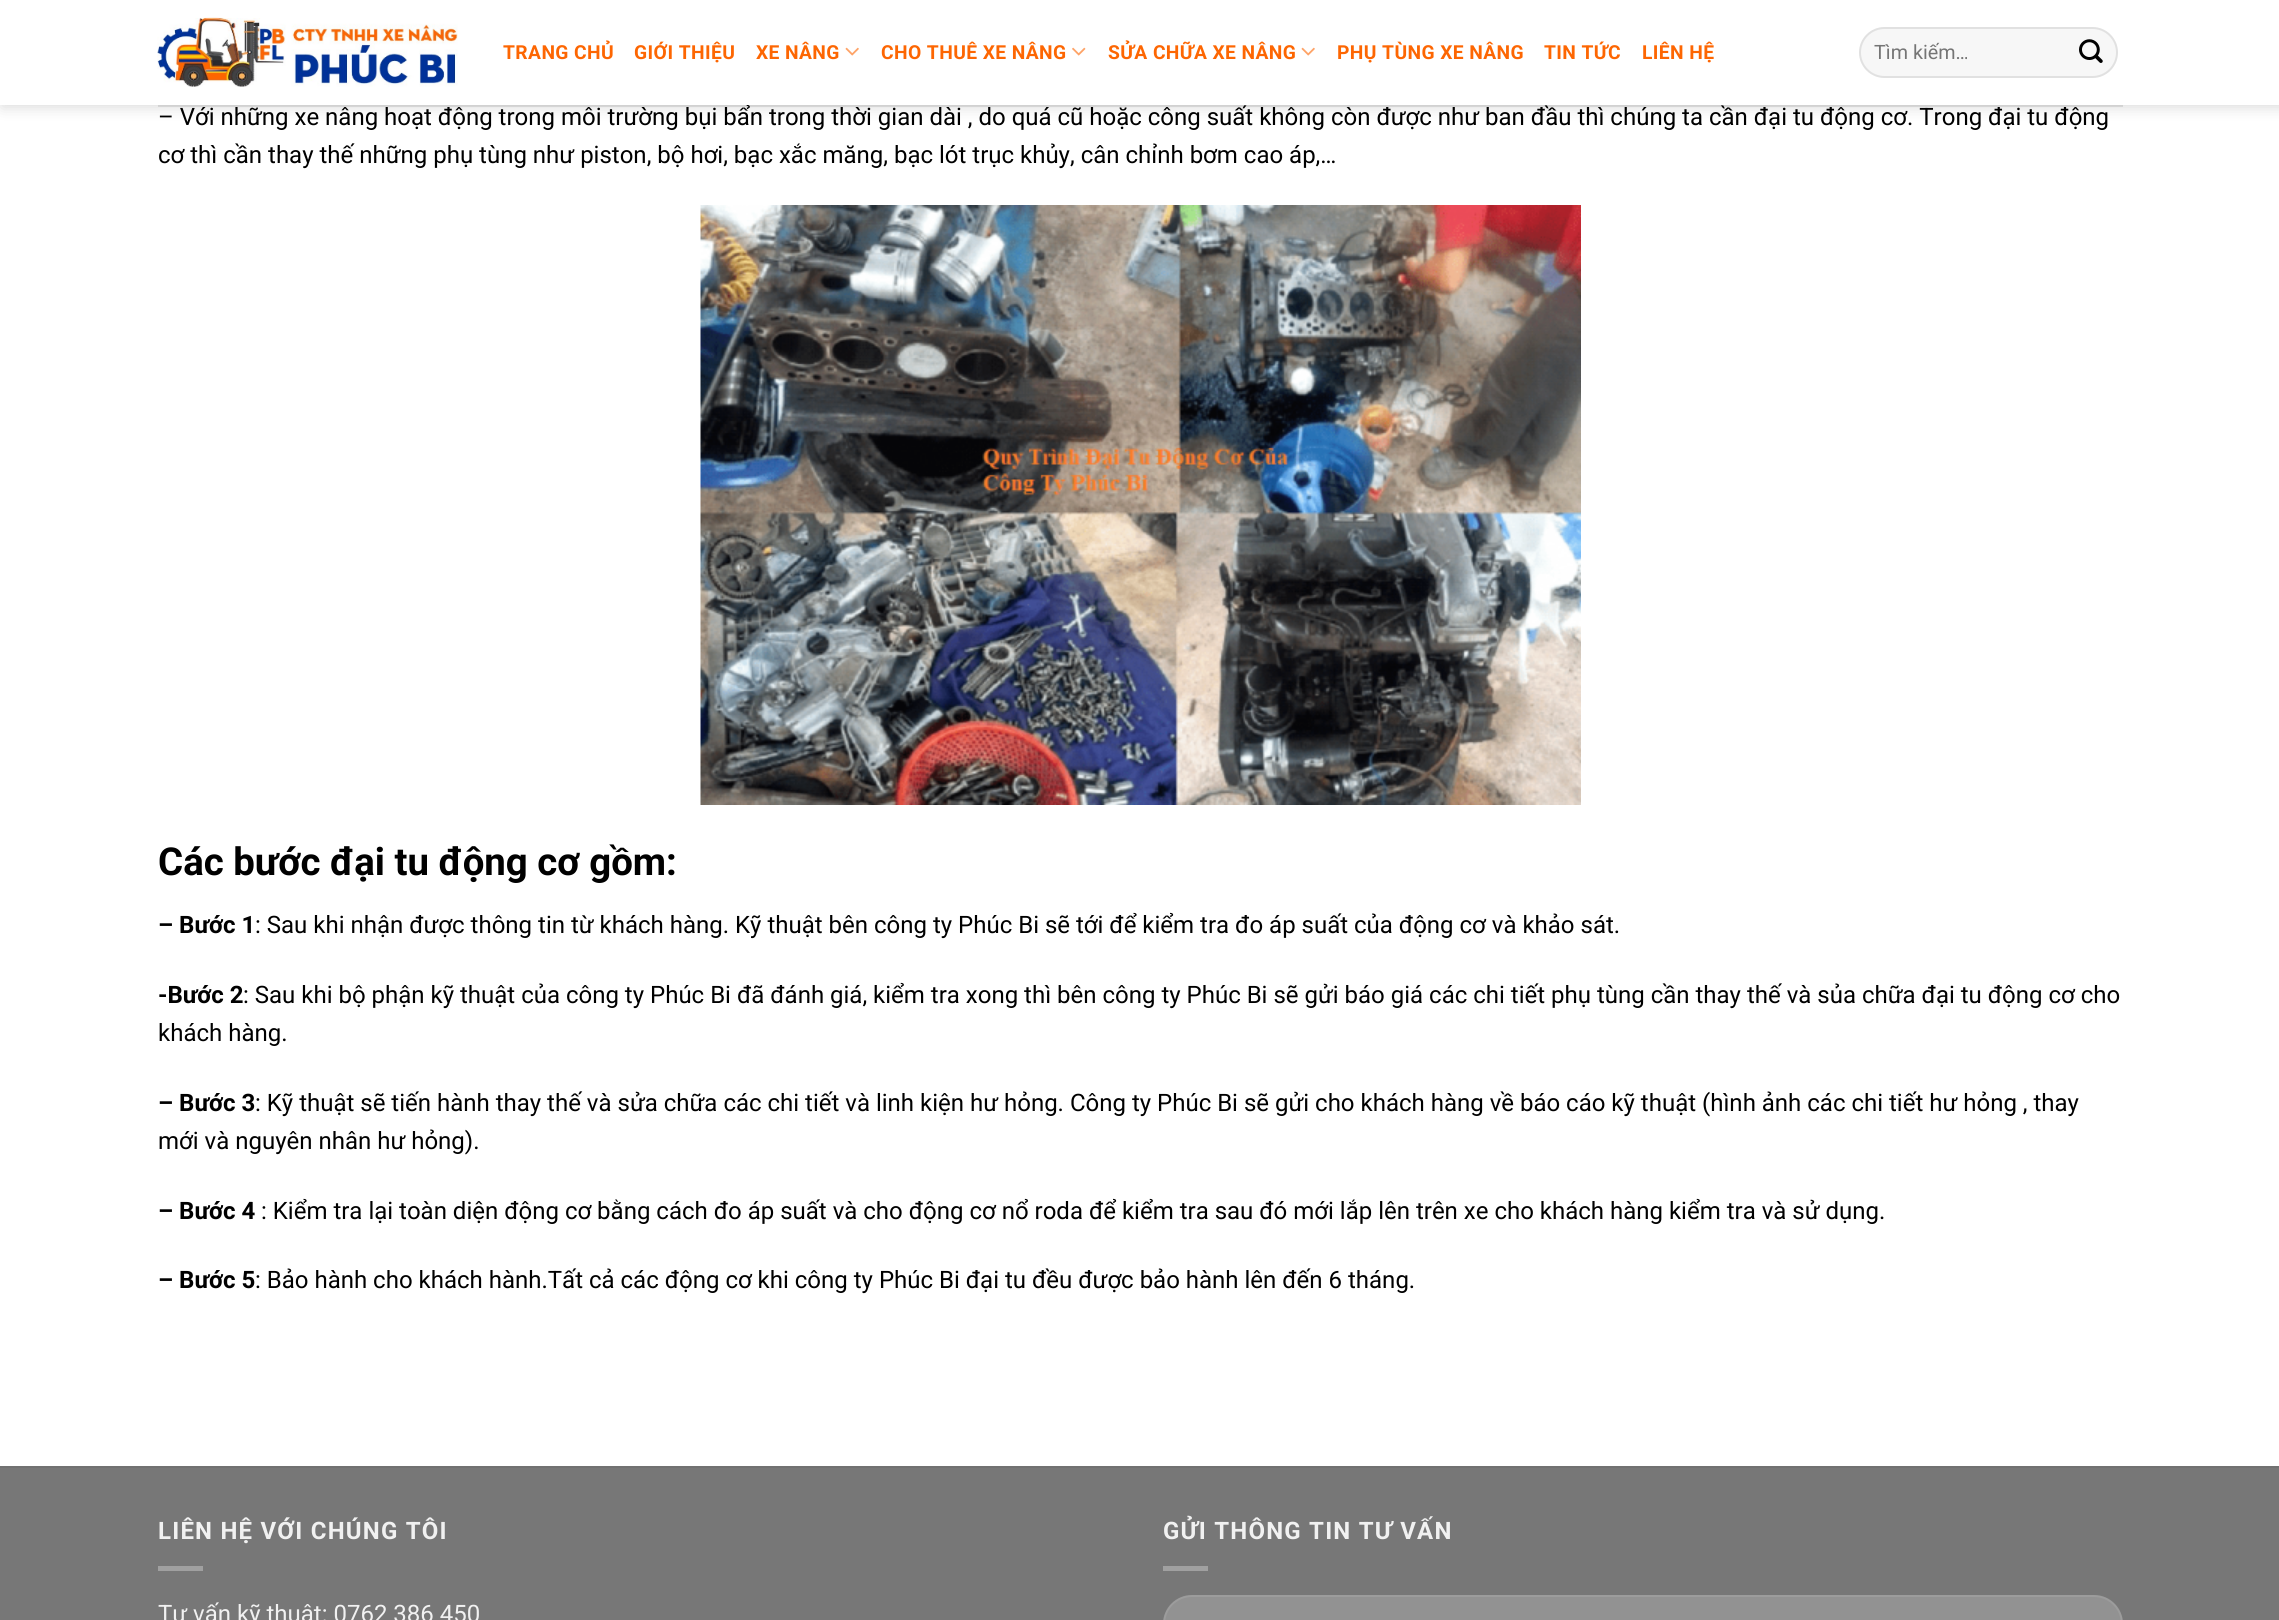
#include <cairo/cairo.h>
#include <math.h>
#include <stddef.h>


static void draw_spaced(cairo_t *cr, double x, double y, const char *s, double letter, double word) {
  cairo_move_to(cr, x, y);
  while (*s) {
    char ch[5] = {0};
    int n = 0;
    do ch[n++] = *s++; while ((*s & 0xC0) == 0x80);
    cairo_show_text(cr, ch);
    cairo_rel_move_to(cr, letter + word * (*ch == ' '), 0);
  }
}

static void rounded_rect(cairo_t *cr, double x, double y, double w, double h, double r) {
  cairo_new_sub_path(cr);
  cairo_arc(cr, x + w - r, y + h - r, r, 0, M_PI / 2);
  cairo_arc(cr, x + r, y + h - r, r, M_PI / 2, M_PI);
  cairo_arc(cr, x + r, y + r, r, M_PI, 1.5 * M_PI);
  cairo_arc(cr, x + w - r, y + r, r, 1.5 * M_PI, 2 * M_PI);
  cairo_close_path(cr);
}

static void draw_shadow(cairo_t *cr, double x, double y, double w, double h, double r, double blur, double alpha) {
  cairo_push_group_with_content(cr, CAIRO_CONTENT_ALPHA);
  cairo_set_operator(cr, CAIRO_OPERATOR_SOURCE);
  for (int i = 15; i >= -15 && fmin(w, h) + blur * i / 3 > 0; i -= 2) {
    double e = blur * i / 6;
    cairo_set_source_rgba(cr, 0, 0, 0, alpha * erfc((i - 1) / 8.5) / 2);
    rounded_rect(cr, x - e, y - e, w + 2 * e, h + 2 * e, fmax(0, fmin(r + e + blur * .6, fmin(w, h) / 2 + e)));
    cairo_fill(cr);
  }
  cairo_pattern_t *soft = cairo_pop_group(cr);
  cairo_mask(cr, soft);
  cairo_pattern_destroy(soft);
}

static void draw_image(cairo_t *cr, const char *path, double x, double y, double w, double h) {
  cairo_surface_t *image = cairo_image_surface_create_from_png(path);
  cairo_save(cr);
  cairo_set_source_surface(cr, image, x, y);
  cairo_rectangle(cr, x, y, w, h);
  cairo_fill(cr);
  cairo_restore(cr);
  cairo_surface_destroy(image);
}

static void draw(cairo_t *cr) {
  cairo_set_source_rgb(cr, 1, 1, 1);
  cairo_paint(cr);
  cairo_set_source_rgb(cr, 0, 0, 0);
  draw_shadow(cr, 2, 2, 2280, 105, 0, 7.5, 0.15);
  cairo_set_source_rgba(cr, 0, 0, 0, 0.1);
  cairo_rectangle(cr, 158, 105, 1965, 2);
  cairo_fill(cr);
  draw_image(cr, "images/5.png", 700, 205, 881, 600);
  cairo_set_source_rgb(cr, 119 / 255.0, 119 / 255.0, 119 / 255.0);
  cairo_rectangle(cr, 0, 1468, 2279, 152);
  cairo_fill(cr);
  cairo_set_source_rgb(cr, 113 / 255.0, 113 / 255.0, 113 / 255.0);
  cairo_rectangle(cr, 0, 1466, 2279, 2);
  cairo_fill(cr);
  cairo_set_source_rgb(cr, 160 / 255.0, 160 / 255.0, 160 / 255.0);
  cairo_rectangle(cr, 158, 1566, 45, 5);
  cairo_fill(cr);
  cairo_rectangle(cr, 1163, 1566, 45, 5);
  cairo_fill(cr);
  cairo_set_source_rgb(cr, 146 / 255.0, 146 / 255.0, 146 / 255.0);
  rounded_rect(cr, 1163, 1595, 960, 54, 29);
  cairo_fill(cr);
  rounded_rect(cr, 1164, 1596, 958, 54, 28);
  cairo_set_source_rgba(cr, 1, 1, 1, 0.09);
  cairo_stroke(cr);
  cairo_select_font_face(cr, "Roboto", CAIRO_FONT_SLANT_NORMAL, CAIRO_FONT_WEIGHT_NORMAL);
  cairo_set_font_size(cr, 24);
  cairo_set_source_rgb(cr, 0, 0, 0);
  cairo_move_to(cr, 158, 125);
  cairo_show_text(cr, "– Với những xe nâng hoạt động trong môi trường bụi bẩn trong thời gian dài , do quá cũ hoặc công suất không còn được như ban đầu thì chúng ta cần đại tu động cơ. Trong đại tu động");
  cairo_set_source_rgb(cr, 1, 1, 1);
  cairo_rectangle(cr, 0, 0, 2279, 105);
  cairo_fill(cr);
  cairo_set_source_rgb(cr, 247 / 255.0, 247 / 255.0, 247 / 255.0);
  rounded_rect(cr, 1859, 27, 259, 51, 25.5);
  cairo_fill(cr);
  rounded_rect(cr, 1860, 28, 257, 49, 24.5);
  cairo_set_source_rgba(cr, 0, 0, 0, 0.09);
  cairo_stroke(cr);
  draw_image(cr, "images/4.png", 2079, 39, 24, 24);
  cairo_set_font_size(cr, 19.75);
  cairo_set_source_rgb(cr, 117 / 255.0, 117 / 255.0, 117 / 255.0);
  cairo_move_to(cr, 1874, 59);
  cairo_show_text(cr, "Tìm kiếm…");
  cairo_select_font_face(cr, "Roboto", CAIRO_FONT_SLANT_NORMAL, CAIRO_FONT_WEIGHT_BOLD);
  cairo_set_font_size(cr, 19.25);
  cairo_set_source_rgb(cr, 253 / 255.0, 102 / 255.0, 2 / 255.0);
  draw_spaced(cr, 1642, 59, "LIÊN HỆ", 0.4, 0);
  draw_spaced(cr, 1544, 59, "TIN TỨC", 0.4, 0);
  draw_spaced(cr, 1337, 59, "PHỤ TÙNG XE NÂNG", 0.4, 0);
  draw_image(cr, "images/2.png", 1301, 47, 14, 9);
  draw_spaced(cr, 1108, 59, "SỬA CHỮA XE NÂNG", 0.4, 0);
  draw_image(cr, "images/3.png", 1072, 47, 14, 9);
  draw_spaced(cr, 881, 59, "CHO THUÊ XE NÂNG", 0.4, 0);
  draw_image(cr, "images/2.png", 845, 47, 14, 9);
  draw_spaced(cr, 756, 59, "XE NÂNG", 0.4, 0);
  draw_spaced(cr, 634, 59, "GIỚI THIỆU", 0.4, 0);
  draw_spaced(cr, 503, 59, "TRANG CHỦ", 0.4, 0);
  draw_image(cr, "images/1.png", 157, 17, 301, 70);
  cairo_select_font_face(cr, "Roboto", CAIRO_FONT_SLANT_NORMAL, CAIRO_FONT_WEIGHT_NORMAL);
  cairo_set_font_size(cr, 24);
  cairo_set_source_rgb(cr, 0, 0, 0);
  cairo_move_to(cr, 158, 163);
  cairo_show_text(cr, "cơ thì cần thay thế những phụ tùng như piston, bộ hơi, bạc xắc măng, bạc lót trục khủy, cân chỉnh bơm cao áp,…");
  cairo_select_font_face(cr, "Roboto", CAIRO_FONT_SLANT_NORMAL, CAIRO_FONT_WEIGHT_BOLD);
  cairo_set_font_size(cr, 38.4);
  cairo_move_to(cr, 158, 875);
  cairo_show_text(cr, "Các bước đại tu động cơ gồm:");
  cairo_set_font_size(cr, 24);
  cairo_move_to(cr, 158, 933);
  cairo_show_text(cr, "– Bước 1");
  cairo_select_font_face(cr, "Roboto", CAIRO_FONT_SLANT_NORMAL, CAIRO_FONT_WEIGHT_NORMAL);
  cairo_move_to(cr, 255, 933);
  cairo_show_text(cr, ": Sau khi nhận được thông tin từ khách hàng. Kỹ thuật bên công ty Phúc Bi sẽ tới để kiểm tra đo áp suất của động cơ và khảo sát.");
  cairo_select_font_face(cr, "Roboto", CAIRO_FONT_SLANT_NORMAL, CAIRO_FONT_WEIGHT_BOLD);
  cairo_move_to(cr, 158, 1003);
  cairo_show_text(cr, "-Bước 2");
  cairo_select_font_face(cr, "Roboto", CAIRO_FONT_SLANT_NORMAL, CAIRO_FONT_WEIGHT_NORMAL);
  cairo_move_to(cr, 243, 1003);
  cairo_show_text(cr, ": Sau khi bộ phận kỹ thuật của công ty Phúc Bi đã đánh giá, kiểm tra xong thì bên công ty Phúc Bi sẽ gửi báo giá các chi tiết phụ tùng cần thay thế và sủa chữa đại tu động cơ cho");
  cairo_move_to(cr, 158, 1041);
  cairo_show_text(cr, "khách hàng.");
  cairo_select_font_face(cr, "Roboto", CAIRO_FONT_SLANT_NORMAL, CAIRO_FONT_WEIGHT_BOLD);
  cairo_move_to(cr, 158, 1111);
  cairo_show_text(cr, "– Bước 3");
  cairo_select_font_face(cr, "Roboto", CAIRO_FONT_SLANT_NORMAL, CAIRO_FONT_WEIGHT_NORMAL);
  cairo_move_to(cr, 255, 1111);
  cairo_show_text(cr, ": Kỹ thuật sẽ tiến hành thay thế và sửa chữa các chi tiết và linh kiện hư hỏng. Công ty Phúc Bi sẽ gửi cho khách hàng về báo cáo kỹ thuật (hình ảnh các chi tiết hư hỏng , thay");
  cairo_move_to(cr, 158, 1149);
  cairo_show_text(cr, "mới và nguyên nhân hư hỏng).");
  cairo_select_font_face(cr, "Roboto", CAIRO_FONT_SLANT_NORMAL, CAIRO_FONT_WEIGHT_BOLD);
  cairo_move_to(cr, 158, 1219);
  cairo_show_text(cr, "– Bước 4");
  cairo_select_font_face(cr, "Roboto", CAIRO_FONT_SLANT_NORMAL, CAIRO_FONT_WEIGHT_NORMAL);
  cairo_move_to(cr, 261, 1219);
  cairo_show_text(cr, ": Kiểm tra lại toàn diện động cơ bằng cách đo áp suất và cho động cơ nổ roda để kiểm tra sau đó mới lắp lên trên xe cho khách hàng kiểm tra và sử dụng.");
  cairo_select_font_face(cr, "Roboto", CAIRO_FONT_SLANT_NORMAL, CAIRO_FONT_WEIGHT_BOLD);
  cairo_move_to(cr, 158, 1288);
  cairo_show_text(cr, "– Bước 5");
  cairo_select_font_face(cr, "Roboto", CAIRO_FONT_SLANT_NORMAL, CAIRO_FONT_WEIGHT_NORMAL);
  cairo_move_to(cr, 255, 1288);
  cairo_show_text(cr, ": Bảo hành cho khách hành.Tất cả các động cơ khi công ty Phúc Bi đại tu đều được bảo hành lên đến 6 tháng.");
  cairo_select_font_face(cr, "Roboto", CAIRO_FONT_SLANT_NORMAL, CAIRO_FONT_WEIGHT_BOLD);
  cairo_set_source_rgb(cr, 241 / 255.0, 241 / 255.0, 241 / 255.0);
  draw_spaced(cr, 158, 1539, "LIÊN HỆ VỚI CHÚNG TÔI", 1.2, 0);
  cairo_select_font_face(cr, "Roboto", CAIRO_FONT_SLANT_NORMAL, CAIRO_FONT_WEIGHT_NORMAL);
  cairo_move_to(cr, 158, 1622);
  cairo_show_text(cr, "Tư vấn kỹ thuật: 0762 386 450");
  cairo_select_font_face(cr, "Roboto", CAIRO_FONT_SLANT_NORMAL, CAIRO_FONT_WEIGHT_BOLD);
  draw_spaced(cr, 1163, 1539, "GỬI THÔNG TIN TƯ VẤN", 1.2, 0);
}

int main(void) {
  cairo_surface_t *surface = cairo_image_surface_create(CAIRO_FORMAT_RGB24, 2279, 1620);
  cairo_t *cr = cairo_create(surface);
  cairo_font_options_t *options = cairo_font_options_create();
  cairo_font_options_set_hint_metrics(options, CAIRO_HINT_METRICS_OFF);
  cairo_font_options_set_hint_style(options, CAIRO_HINT_STYLE_NONE);
  cairo_set_font_options(cr, options);
  cairo_set_miter_limit(cr, 4);
  draw(cr);
  cairo_surface_write_to_png(surface, "out.png");
  cairo_font_options_destroy(options);
  cairo_destroy(cr);
  cairo_surface_destroy(surface);
  return 0;
}
